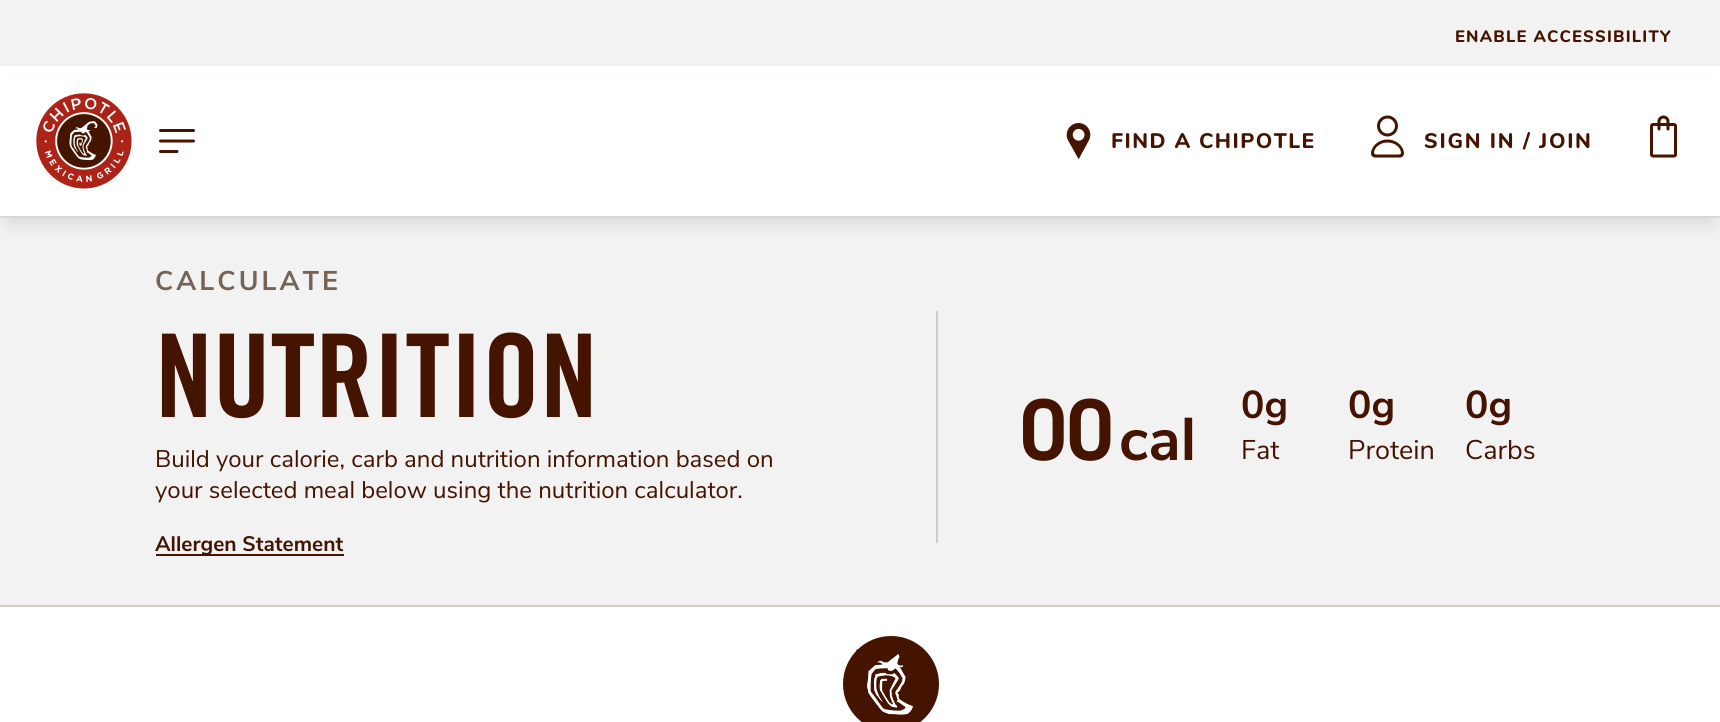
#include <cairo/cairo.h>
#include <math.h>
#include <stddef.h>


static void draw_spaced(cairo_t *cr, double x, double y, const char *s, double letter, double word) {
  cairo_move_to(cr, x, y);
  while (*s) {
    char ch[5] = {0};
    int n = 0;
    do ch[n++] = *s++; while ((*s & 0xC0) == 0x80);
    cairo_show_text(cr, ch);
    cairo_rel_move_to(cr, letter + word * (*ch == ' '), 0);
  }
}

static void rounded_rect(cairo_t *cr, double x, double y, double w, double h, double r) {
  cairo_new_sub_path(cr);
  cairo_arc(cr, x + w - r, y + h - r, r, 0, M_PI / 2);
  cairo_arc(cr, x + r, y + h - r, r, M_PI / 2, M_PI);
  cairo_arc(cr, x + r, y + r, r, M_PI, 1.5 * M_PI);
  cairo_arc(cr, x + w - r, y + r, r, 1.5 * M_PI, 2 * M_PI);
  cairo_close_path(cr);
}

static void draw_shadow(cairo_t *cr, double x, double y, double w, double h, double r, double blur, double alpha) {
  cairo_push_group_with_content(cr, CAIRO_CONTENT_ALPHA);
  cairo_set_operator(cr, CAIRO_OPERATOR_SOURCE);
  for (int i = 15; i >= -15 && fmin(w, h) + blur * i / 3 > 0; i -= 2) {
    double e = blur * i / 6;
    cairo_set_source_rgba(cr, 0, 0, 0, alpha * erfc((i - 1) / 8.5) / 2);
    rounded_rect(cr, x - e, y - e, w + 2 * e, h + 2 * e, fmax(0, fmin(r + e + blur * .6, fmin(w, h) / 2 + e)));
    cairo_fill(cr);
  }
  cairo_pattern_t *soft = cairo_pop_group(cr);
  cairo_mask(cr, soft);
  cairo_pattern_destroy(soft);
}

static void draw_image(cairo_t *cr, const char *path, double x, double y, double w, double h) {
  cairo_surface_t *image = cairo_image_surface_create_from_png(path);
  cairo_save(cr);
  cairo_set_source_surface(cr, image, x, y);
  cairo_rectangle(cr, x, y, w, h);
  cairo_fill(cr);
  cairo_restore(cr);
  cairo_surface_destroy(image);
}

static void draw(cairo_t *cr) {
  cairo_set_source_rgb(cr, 1, 1, 1);
  cairo_paint(cr);
  cairo_set_source_rgb(cr, 242 / 255.0, 242 / 255.0, 242 / 255.0);
  cairo_rectangle(cr, 0, 0, 1720, 66);
  cairo_fill(cr);
  cairo_rectangle(cr, 0, 218, 1720, 387);
  cairo_fill(cr);
  cairo_set_source_rgb(cr, 0, 0, 0);
  draw_shadow(cr, 8, 89, 1705, 136, 0, 8, 0.1);
  cairo_set_source_rgb(cr, 1, 1, 1);
  cairo_rectangle(cr, 0, 79, 1720, 137);
  cairo_fill(cr);
  cairo_set_source_rgb(cr, 215 / 255.0, 215 / 255.0, 215 / 255.0);
  cairo_rectangle(cr, 0, 216, 1720, 2);
  cairo_fill(cr);
  draw_image(cr, "images/1.png", 36, 93, 96, 96);
  draw_image(cr, "images/2.png", 159, 129, 36, 24);
  draw_image(cr, "images/3.png", 1066, 123, 25, 36);
  draw_image(cr, "images/4.png", 1371, 115, 33, 43);
  draw_image(cr, "images/5.png", 1650, 115, 27, 43);
  cairo_set_source_rgb(cr, 212 / 255.0, 203 / 255.0, 199 / 255.0);
  cairo_rectangle(cr, 0, 605, 1720, 2);
  cairo_fill(cr);
  cairo_set_source_rgb(cr, 69 / 255.0, 20 / 255.0, 0);
  cairo_rectangle(cr, 156, 554, 188, 2);
  cairo_fill(cr);
  cairo_set_source_rgb(cr, 212 / 255.0, 203 / 255.0, 199 / 255.0);
  cairo_rectangle(cr, 936, 311, 2, 232);
  cairo_fill(cr);
  cairo_set_source_rgb(cr, 69 / 255.0, 20 / 255.0, 0);
  cairo_arc(cr, 891, 684, 48, 0, 2 * M_PI);
  cairo_fill(cr);
  draw_image(cr, "images/6.png", 856, 649, 57, 66);
  cairo_select_font_face(cr, "Nunito ExtraBold", CAIRO_FONT_SLANT_NORMAL, CAIRO_FONT_WEIGHT_NORMAL);
  cairo_set_font_size(cr, 16.5);
  draw_spaced(cr, 1455, 42, "ENABLE ACCESSIBILITY", 1.25, 0);
  cairo_set_font_size(cr, 21);
  draw_spaced(cr, 1111, 148, "FIND A CHIPOTLE", 1.5, 0);
  draw_spaced(cr, 1424, 148, "SIGN IN / JOIN", 1.75, 0);
  cairo_select_font_face(cr, "Nunito Sans", CAIRO_FONT_SLANT_NORMAL, CAIRO_FONT_WEIGHT_BOLD);
  cairo_set_font_size(cr, 27);
  cairo_set_source_rgb(cr, 117 / 255.0, 100 / 255.0, 86 / 255.0);
  draw_spaced(cr, 155, 290, "CALCULATE", 3, 0);
  cairo_select_font_face(cr, "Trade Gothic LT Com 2", CAIRO_FONT_SLANT_NORMAL, CAIRO_FONT_WEIGHT_BOLD);
  cairo_set_font_size(cr, 115.5);
  cairo_set_source_rgb(cr, 69 / 255.0, 20 / 255.0, 0);
  cairo_move_to(cr, 155, 417);
  cairo_show_text(cr, "NUTRITION");
  cairo_select_font_face(cr, "Nunito Sans", CAIRO_FONT_SLANT_NORMAL, CAIRO_FONT_WEIGHT_NORMAL);
  cairo_set_font_size(cr, 24);
  cairo_move_to(cr, 155, 467);
  cairo_show_text(cr, "Build your calorie, carb and nutrition information based on");
  cairo_move_to(cr, 155, 498);
  cairo_show_text(cr, "your selected meal below using the nutrition calculator.");
  cairo_select_font_face(cr, "Nunito Sans", CAIRO_FONT_SLANT_NORMAL, CAIRO_FONT_WEIGHT_BOLD);
  cairo_set_font_size(cr, 21);
  cairo_move_to(cr, 155, 551);
  cairo_show_text(cr, "Allergen Statement");
  cairo_select_font_face(cr, "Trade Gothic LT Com", CAIRO_FONT_SLANT_NORMAL, CAIRO_FONT_WEIGHT_BOLD);
  cairo_set_font_size(cr, 84);
  cairo_move_to(cr, 1020, 460);
  cairo_show_text(cr, "00");
  cairo_select_font_face(cr, "Nunito Sans", CAIRO_FONT_SLANT_NORMAL, CAIRO_FONT_WEIGHT_BOLD);
  cairo_set_font_size(cr, 60);
  cairo_move_to(cr, 1119, 460);
  cairo_show_text(cr, "cal");
  cairo_set_font_size(cr, 39);
  cairo_move_to(cr, 1241, 418);
  cairo_show_text(cr, "0g");
  cairo_select_font_face(cr, "Nunito Sans", CAIRO_FONT_SLANT_NORMAL, CAIRO_FONT_WEIGHT_NORMAL);
  cairo_set_font_size(cr, 27);
  cairo_move_to(cr, 1241, 459);
  cairo_show_text(cr, "Fat");
  cairo_select_font_face(cr, "Nunito Sans", CAIRO_FONT_SLANT_NORMAL, CAIRO_FONT_WEIGHT_BOLD);
  cairo_set_font_size(cr, 39);
  cairo_move_to(cr, 1348, 418);
  cairo_show_text(cr, "0g");
  cairo_select_font_face(cr, "Nunito Sans", CAIRO_FONT_SLANT_NORMAL, CAIRO_FONT_WEIGHT_NORMAL);
  cairo_set_font_size(cr, 27);
  cairo_move_to(cr, 1348, 459);
  cairo_show_text(cr, "Protein");
  cairo_select_font_face(cr, "Nunito Sans", CAIRO_FONT_SLANT_NORMAL, CAIRO_FONT_WEIGHT_BOLD);
  cairo_set_font_size(cr, 39);
  cairo_move_to(cr, 1465, 418);
  cairo_show_text(cr, "0g");
  cairo_select_font_face(cr, "Nunito Sans", CAIRO_FONT_SLANT_NORMAL, CAIRO_FONT_WEIGHT_NORMAL);
  cairo_set_font_size(cr, 27);
  cairo_move_to(cr, 1465, 459);
  cairo_show_text(cr, "Carbs");
}

int main(void) {
  cairo_surface_t *surface = cairo_image_surface_create(CAIRO_FORMAT_RGB24, 1720, 722);
  cairo_t *cr = cairo_create(surface);
  cairo_font_options_t *options = cairo_font_options_create();
  cairo_font_options_set_hint_metrics(options, CAIRO_HINT_METRICS_OFF);
  cairo_font_options_set_hint_style(options, CAIRO_HINT_STYLE_NONE);
  cairo_set_font_options(cr, options);
  cairo_set_miter_limit(cr, 4);
  draw(cr);
  cairo_surface_write_to_png(surface, "out.png");
  cairo_font_options_destroy(options);
  cairo_destroy(cr);
  cairo_surface_destroy(surface);
  return 0;
}
